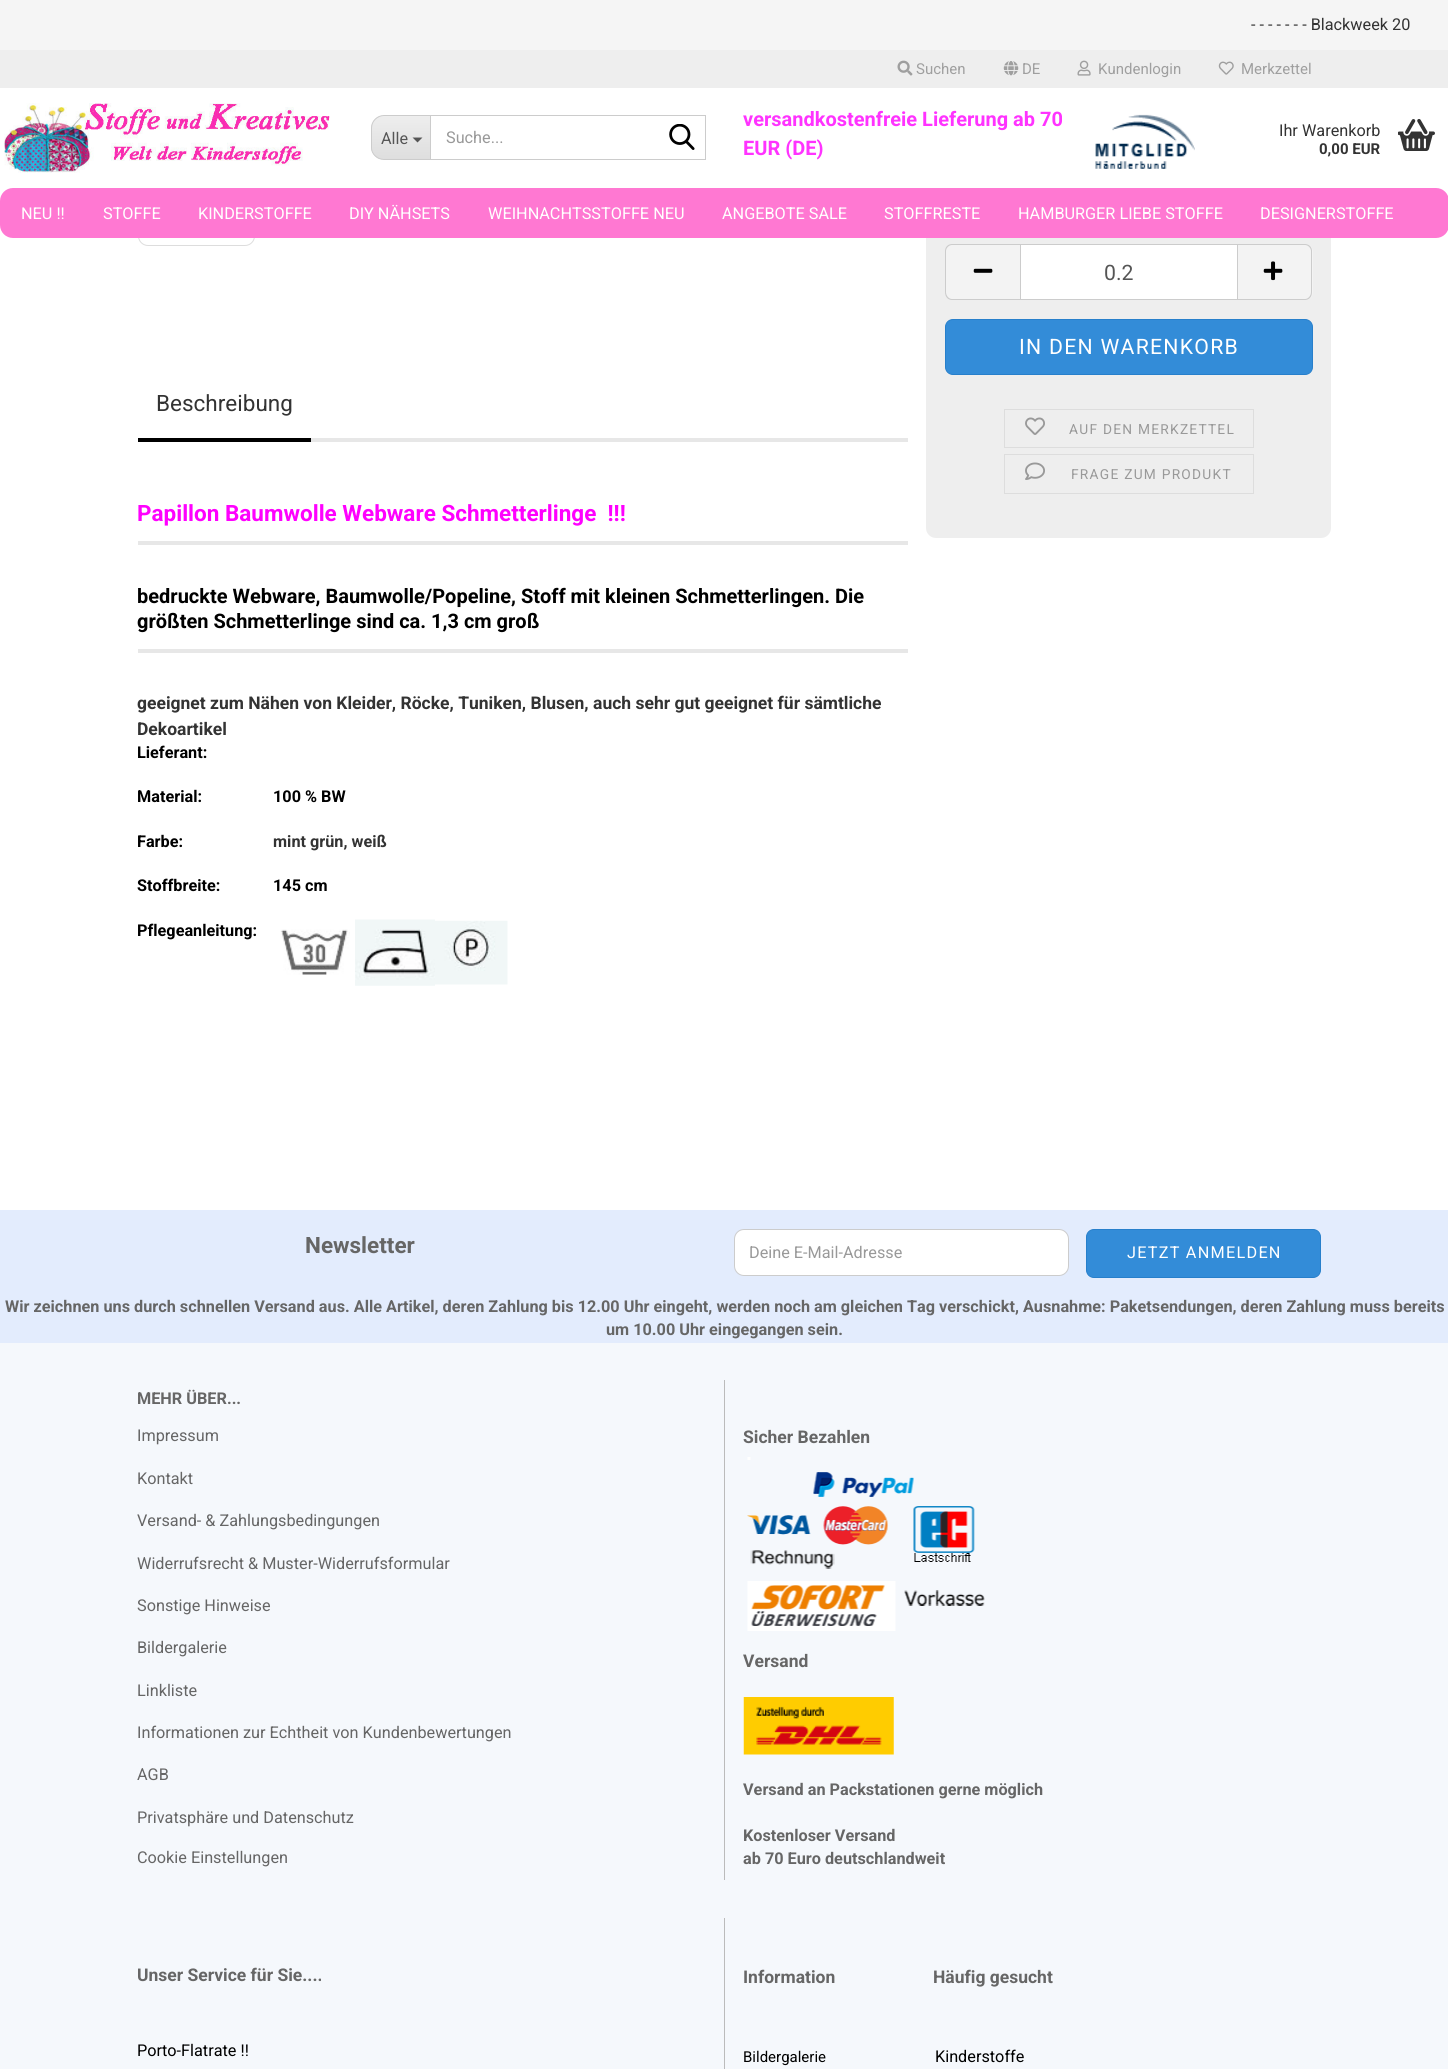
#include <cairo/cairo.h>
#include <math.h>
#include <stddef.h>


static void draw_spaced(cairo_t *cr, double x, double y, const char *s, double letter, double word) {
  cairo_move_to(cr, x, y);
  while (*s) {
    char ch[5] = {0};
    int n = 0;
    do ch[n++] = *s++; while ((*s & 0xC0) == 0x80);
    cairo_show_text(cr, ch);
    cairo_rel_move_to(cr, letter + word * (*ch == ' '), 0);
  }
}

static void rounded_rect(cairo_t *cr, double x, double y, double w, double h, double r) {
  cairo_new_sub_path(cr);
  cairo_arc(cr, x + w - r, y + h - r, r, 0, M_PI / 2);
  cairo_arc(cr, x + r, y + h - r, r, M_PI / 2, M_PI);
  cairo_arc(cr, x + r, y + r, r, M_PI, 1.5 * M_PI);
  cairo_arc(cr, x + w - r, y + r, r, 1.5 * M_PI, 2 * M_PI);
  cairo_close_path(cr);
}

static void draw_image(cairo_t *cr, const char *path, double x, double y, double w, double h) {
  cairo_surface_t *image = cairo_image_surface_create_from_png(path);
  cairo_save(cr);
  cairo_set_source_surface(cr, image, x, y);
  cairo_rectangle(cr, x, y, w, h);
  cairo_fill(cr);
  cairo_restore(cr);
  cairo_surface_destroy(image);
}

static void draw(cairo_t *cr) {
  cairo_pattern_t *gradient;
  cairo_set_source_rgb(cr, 1, 1, 1);
  cairo_paint(cr);
  rounded_rect(cr, 138.5, -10.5, 116, 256, 9.5);
  cairo_set_source_rgb(cr, 221 / 255.0, 221 / 255.0, 221 / 255.0);
  cairo_set_line_width(cr, 1);
  cairo_stroke(cr);
  cairo_set_source_rgb(cr, 238 / 255.0, 238 / 255.0, 238 / 255.0);
  rounded_rect(cr, 926, -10, 405, 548, 10);
  cairo_fill(cr);
  cairo_set_source_rgb(cr, 1, 1, 1);
  cairo_rectangle(cr, 138, 88, 1193, 150);
  cairo_fill(cr);
  cairo_set_source_rgb(cr, 245 / 255.0, 245 / 255.0, 245 / 255.0);
  cairo_rectangle(cr, 0, 0, 1448, 50);
  cairo_fill(cr);
  cairo_set_source_rgb(cr, 238 / 255.0, 238 / 255.0, 238 / 255.0);
  cairo_rectangle(cr, 0, 50, 1448, 38);
  cairo_fill(cr);
  draw_image(cr, "images/1.png", 897, 60, 16, 16);
  draw_image(cr, "images/2.png", 1003, 61, 16, 15);
  draw_image(cr, "images/3.png", 1077, 60, 14, 16);
  draw_image(cr, "images/4.png", 1218, 61, 16, 14);
  draw_image(cr, "images/5.png", 4, 103, 326, 70);
  cairo_save(cr);
  cairo_new_path(cr);
  cairo_move_to(cr, 384, 115);
  cairo_line_to(cr, 430, 115);
  cairo_line_to(cr, 430, 160);
  cairo_line_to(cr, 384, 160);
  cairo_curve_to(cr, 377, 160, 371, 154, 371, 147);
  cairo_line_to(cr, 371, 128);
  cairo_curve_to(cr, 371, 121, 377, 115, 384, 115);
  cairo_close_path(cr);
  cairo_clip(cr);
  gradient = cairo_pattern_create_linear(401, 116, 401, 159);
  cairo_pattern_add_color_stop_rgba(gradient, 0, 238 / 255.0, 238 / 255.0, 238 / 255.0, 1);
  cairo_pattern_add_color_stop_rgba(gradient, 1, 222 / 255.0, 222 / 255.0, 222 / 255.0, 1);
  cairo_set_source(cr, gradient);
  cairo_pattern_destroy(gradient);
  cairo_rectangle(cr, 371, 116, 59, 43);
  cairo_fill(cr);
  cairo_restore(cr);
  cairo_set_source_rgb(cr, 204 / 255.0, 204 / 255.0, 204 / 255.0);
  cairo_set_fill_rule(cr, CAIRO_FILL_RULE_EVEN_ODD);
  cairo_new_path(cr);
  cairo_move_to(cr, 384, 115);
  cairo_line_to(cr, 430, 115);
  cairo_line_to(cr, 430, 160);
  cairo_line_to(cr, 384, 160);
  cairo_curve_to(cr, 377, 160, 371, 154, 371, 148);
  cairo_line_to(cr, 371, 128);
  cairo_curve_to(cr, 371, 121, 377, 115, 384, 115);
  cairo_close_path(cr);
  cairo_move_to(cr, 384, 116);
  cairo_line_to(cr, 430, 116);
  cairo_line_to(cr, 430, 159);
  cairo_line_to(cr, 384, 159);
  cairo_curve_to(cr, 378, 159, 372, 154, 372, 148);
  cairo_line_to(cr, 372, 128);
  cairo_curve_to(cr, 372, 121, 378, 116, 384, 116);
  cairo_close_path(cr);
  cairo_fill(cr);
  cairo_set_source_rgb(cr, 85 / 255.0, 85 / 255.0, 85 / 255.0);
  cairo_set_fill_rule(cr, CAIRO_FILL_RULE_WINDING);
  cairo_new_path(cr);
  cairo_move_to(cr, 412.5, 137.5);
  cairo_line_to(cr, 422.5, 137.5);
  cairo_line_to(cr, 417.5, 142.5);
  cairo_close_path(cr);
  cairo_fill(cr);
  cairo_rectangle(cr, 430.5, 115.5, 275, 44);
  cairo_set_source_rgb(cr, 204 / 255.0, 204 / 255.0, 204 / 255.0);
  cairo_stroke(cr);
  draw_image(cr, "images/6.png", 669, 124, 26, 26);
  draw_image(cr, "images/7.png", 1095, 114, 100, 55);
  draw_image(cr, "images/8.png", 1398, 119, 37, 32);
  cairo_set_source_rgb(cr, 1, 120 / 255.0, 210 / 255.0);
  rounded_rect(cr, 0, 188, 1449, 50, 13);
  cairo_fill(cr);
  cairo_set_source_rgb(cr, 243 / 255.0, 243 / 255.0, 243 / 255.0);
  cairo_new_path(cr);
  cairo_move_to(cr, 953, 244);
  cairo_line_to(cr, 1020, 244);
  cairo_line_to(cr, 1020, 300);
  cairo_line_to(cr, 953, 300);
  cairo_curve_to(cr, 948.5, 300, 945, 296.5, 945, 292);
  cairo_line_to(cr, 945, 252);
  cairo_curve_to(cr, 945, 247.5, 948.5, 244, 953, 244);
  cairo_close_path(cr);
  cairo_fill(cr);
  cairo_set_source_rgb(cr, 204 / 255.0, 204 / 255.0, 204 / 255.0);
  cairo_set_fill_rule(cr, CAIRO_FILL_RULE_EVEN_ODD);
  cairo_new_path(cr);
  cairo_move_to(cr, 952, 244);
  cairo_line_to(cr, 1020, 244);
  cairo_line_to(cr, 1020, 300);
  cairo_line_to(cr, 952, 300);
  cairo_curve_to(cr, 948, 300, 945, 297, 945, 292);
  cairo_line_to(cr, 945, 251);
  cairo_curve_to(cr, 945, 247, 948, 244, 952, 244);
  cairo_close_path(cr);
  cairo_move_to(cr, 952, 245);
  cairo_line_to(cr, 1020, 245);
  cairo_line_to(cr, 1020, 299);
  cairo_line_to(cr, 952, 299);
  cairo_curve_to(cr, 949, 299, 946, 296, 946, 292);
  cairo_line_to(cr, 946, 251);
  cairo_curve_to(cr, 946, 248, 949, 245, 952, 245);
  cairo_close_path(cr);
  cairo_fill(cr);
  draw_image(cr, "images/9.png", 973, 268, 20, 5);
  cairo_set_source_rgb(cr, 1, 1, 1);
  cairo_rectangle(cr, 1020.5, 244.5, 217, 55);
  cairo_fill_preserve(cr);
  cairo_set_source_rgb(cr, 204 / 255.0, 204 / 255.0, 204 / 255.0);
  cairo_stroke(cr);
  cairo_set_source_rgb(cr, 243 / 255.0, 243 / 255.0, 243 / 255.0);
  cairo_new_path(cr);
  cairo_move_to(cr, 1238, 244);
  cairo_line_to(cr, 1305, 244);
  cairo_curve_to(cr, 1309.5, 244, 1313, 247.5, 1313, 252);
  cairo_line_to(cr, 1313, 292);
  cairo_curve_to(cr, 1313, 296.5, 1309.5, 300, 1305, 300);
  cairo_line_to(cr, 1238, 300);
  cairo_close_path(cr);
  cairo_fill(cr);
  cairo_set_source_rgb(cr, 204 / 255.0, 204 / 255.0, 204 / 255.0);
  cairo_new_path(cr);
  cairo_move_to(cr, 1238, 244);
  cairo_line_to(cr, 1305, 244);
  cairo_curve_to(cr, 1309, 244, 1312, 247, 1312, 251);
  cairo_line_to(cr, 1312, 292);
  cairo_curve_to(cr, 1312, 297, 1309, 300, 1305, 300);
  cairo_line_to(cr, 1238, 300);
  cairo_close_path(cr);
  cairo_move_to(cr, 1238, 245);
  cairo_line_to(cr, 1305, 245);
  cairo_curve_to(cr, 1308, 245, 1311, 248, 1311, 251);
  cairo_line_to(cr, 1311, 292);
  cairo_curve_to(cr, 1311, 296, 1308, 299, 1305, 299);
  cairo_line_to(cr, 1238, 299);
  cairo_close_path(cr);
  cairo_fill(cr);
  draw_image(cr, "images/10.png", 1263, 261, 20, 20);
  cairo_set_source_rgb(cr, 51 / 255.0, 140 / 255.0, 216 / 255.0);
  rounded_rect(cr, 945.5, 319.5, 367, 55, 7.5);
  cairo_fill_preserve(cr);
  cairo_set_source_rgb(cr, 39 / 255.0, 127 / 255.0, 203 / 255.0);
  cairo_stroke(cr);
  cairo_rectangle(cr, 1004.5, 409.5, 249, 38);
  cairo_set_source_rgb(cr, 221 / 255.0, 221 / 255.0, 221 / 255.0);
  cairo_stroke(cr);
  draw_image(cr, "images/11.png", 1025, 417, 20, 18);
  cairo_rectangle(cr, 1004.5, 454.5, 249, 39);
  cairo_stroke(cr);
  draw_image(cr, "images/12.png", 1025, 462, 20, 18);
  cairo_set_source_rgb(cr, 231 / 255.0, 231 / 255.0, 231 / 255.0);
  cairo_rectangle(cr, 311, 438, 597, 4);
  cairo_fill(cr);
  cairo_set_source_rgb(cr, 0, 0, 0);
  cairo_rectangle(cr, 138, 438, 173, 4);
  cairo_fill(cr);
  cairo_set_source_rgb(cr, 231 / 255.0, 231 / 255.0, 231 / 255.0);
  cairo_rectangle(cr, 138, 541, 770, 4);
  cairo_fill(cr);
  cairo_rectangle(cr, 138, 649, 770, 4);
  cairo_fill(cr);
  draw_image(cr, "images/13.png", 280, 929, 70, 46);
  draw_image(cr, "images/14.png", 355, 919, 80, 67);
  draw_image(cr, "images/15.png", 435, 920, 73, 65);
  cairo_set_source_rgb(cr, 245 / 255.0, 248 / 255.0, 252 / 255.0);
  cairo_rectangle(cr, 0, 1343, 1448, 726);
  cairo_fill(cr);
  cairo_set_source_rgb(cr, 227 / 255.0, 236 / 255.0, 253 / 255.0);
  cairo_rectangle(cr, 0, 1210, 1448, 133);
  cairo_fill(cr);
  cairo_set_source_rgb(cr, 1, 1, 1);
  rounded_rect(cr, 734.5, 1229.5, 334, 46, 9.5);
  cairo_fill_preserve(cr);
  cairo_set_source_rgb(cr, 204 / 255.0, 204 / 255.0, 204 / 255.0);
  cairo_stroke(cr);
  cairo_set_source_rgb(cr, 51 / 255.0, 140 / 255.0, 216 / 255.0);
  rounded_rect(cr, 1086.5, 1229.5, 234, 48, 7.5);
  cairo_fill_preserve(cr);
  cairo_set_source_rgb(cr, 39 / 255.0, 127 / 255.0, 203 / 255.0);
  cairo_stroke(cr);
  cairo_set_source_rgb(cr, 187 / 255.0, 187 / 255.0, 187 / 255.0);
  cairo_rectangle(cr, 724, 1380, 1, 500);
  cairo_fill(cr);
  draw_image(cr, "images/16.png", 747, 1457, 238, 174);
  draw_image(cr, "images/17.png", 743, 1697, 151, 58);
  cairo_rectangle(cr, 724, 1918, 1, 151);
  cairo_fill(cr);
  cairo_select_font_face(cr, "Roboto", CAIRO_FONT_SLANT_NORMAL, CAIRO_FONT_WEIGHT_NORMAL);
  cairo_set_font_size(cr, 16.25);
  cairo_set_source_rgb(cr, 51 / 255.0, 51 / 255.0, 51 / 255.0);
  cairo_move_to(cr, 1251, 30);
  cairo_show_text(cr, "- - - - - - - Blackweek 20");
  cairo_set_font_size(cr, 15);
  cairo_set_source_rgb(cr, 159 / 255.0, 159 / 255.0, 159 / 255.0);
  cairo_move_to(cr, 916, 74);
  cairo_show_text(cr, "Suchen");
  cairo_move_to(cr, 1022, 74);
  cairo_show_text(cr, "DE");
  cairo_move_to(cr, 1098, 74);
  cairo_show_text(cr, "Kundenlogin");
  cairo_move_to(cr, 1241, 74);
  cairo_show_text(cr, "Merkzettel");
  cairo_set_font_size(cr, 16.25);
  cairo_set_source_rgb(cr, 85 / 255.0, 85 / 255.0, 85 / 255.0);
  cairo_move_to(cr, 381, 144);
  cairo_show_text(cr, "Alle");
  cairo_set_source_rgb(cr, 153 / 255.0, 153 / 255.0, 153 / 255.0);
  cairo_move_to(cr, 446, 143);
  cairo_show_text(cr, "Suche...");
  cairo_select_font_face(cr, "Roboto", CAIRO_FONT_SLANT_NORMAL, CAIRO_FONT_WEIGHT_BOLD);
  cairo_set_font_size(cr, 20);
  cairo_set_source_rgb(cr, 1, 51 / 255.0, 1);
  cairo_move_to(cr, 743, 126);
  cairo_show_text(cr, "versandkostenfreie Lieferung ab 70");
  cairo_move_to(cr, 743, 155);
  cairo_show_text(cr, "EUR (DE)");
  cairo_select_font_face(cr, "Roboto", CAIRO_FONT_SLANT_NORMAL, CAIRO_FONT_WEIGHT_NORMAL);
  cairo_set_font_size(cr, 16.25);
  cairo_set_source_rgb(cr, 51 / 255.0, 51 / 255.0, 51 / 255.0);
  cairo_move_to(cr, 1279, 136);
  cairo_show_text(cr, "Ihr Warenkorb");
  cairo_select_font_face(cr, "Roboto", CAIRO_FONT_SLANT_NORMAL, CAIRO_FONT_WEIGHT_BOLD);
  cairo_set_font_size(cr, 15);
  cairo_move_to(cr, 1319, 154);
  cairo_show_text(cr, "0,00 EUR");
  cairo_select_font_face(cr, "Roboto", CAIRO_FONT_SLANT_NORMAL, CAIRO_FONT_WEIGHT_NORMAL);
  cairo_set_font_size(cr, 16.25);
  cairo_set_source_rgb(cr, 1, 1, 1);
  cairo_move_to(cr, 21, 219);
  cairo_show_text(cr, "NEU !!");
  cairo_move_to(cr, 103, 219);
  cairo_show_text(cr, "STOFFE");
  cairo_move_to(cr, 198, 219);
  cairo_show_text(cr, "KINDERSTOFFE");
  cairo_move_to(cr, 349, 219);
  cairo_show_text(cr, "DIY NÄHSETS");
  cairo_move_to(cr, 488, 219);
  cairo_show_text(cr, "WEIHNACHTSSTOFFE NEU");
  cairo_move_to(cr, 722, 219);
  cairo_show_text(cr, "ANGEBOTE SALE");
  cairo_move_to(cr, 884, 219);
  cairo_show_text(cr, "STOFFRESTE");
  cairo_move_to(cr, 1018, 219);
  cairo_show_text(cr, "HAMBURGER LIEBE STOFFE");
  cairo_move_to(cr, 1260, 219);
  cairo_show_text(cr, "DESIGNERSTOFFE");
  cairo_set_font_size(cr, 21.25);
  cairo_set_source_rgb(cr, 85 / 255.0, 85 / 255.0, 85 / 255.0);
  cairo_move_to(cr, 1104, 280);
  cairo_show_text(cr, "0.2");
  cairo_set_source_rgb(cr, 1, 1, 1);
  draw_spaced(cr, 1019, 354, "IN DEN WARENKORB", 1.25, 0);
  cairo_set_font_size(cr, 13.75);
  cairo_set_source_rgb(cr, 153 / 255.0, 153 / 255.0, 153 / 255.0);
  draw_spaced(cr, 1069, 434, "AUF DEN MERKZETTEL", 1.25, 0);
  draw_spaced(cr, 1071, 479, "FRAGE ZUM PRODUKT", 1.25, 0);
  cairo_set_font_size(cr, 22.5);
  cairo_set_source_rgb(cr, 51 / 255.0, 51 / 255.0, 51 / 255.0);
  cairo_move_to(cr, 156, 411);
  cairo_show_text(cr, "Beschreibung");
  cairo_select_font_face(cr, "Roboto", CAIRO_FONT_SLANT_NORMAL, CAIRO_FONT_WEIGHT_BOLD);
  cairo_set_source_rgb(cr, 1, 0, 1);
  cairo_move_to(cr, 137, 521);
  cairo_show_text(cr, "Papillon Baumwolle Webware Schmetterlinge  !!!");
  cairo_set_font_size(cr, 20);
  cairo_set_source_rgb(cr, 0, 0, 0);
  cairo_move_to(cr, 137, 603);
  cairo_show_text(cr, "bedruckte Webware, Baumwolle/Popeline, Stoff mit kleinen Schmetterlingen. Die");
  cairo_move_to(cr, 137, 628);
  cairo_show_text(cr, "größten Schmetterlinge sind ca. 1,3 cm groß");
  cairo_set_font_size(cr, 17.5);
  cairo_set_source_rgb(cr, 51 / 255.0, 51 / 255.0, 51 / 255.0);
  cairo_move_to(cr, 137, 709);
  cairo_show_text(cr, "geeignet zum Nähen von Kleider, Röcke, Tuniken, Blusen, auch sehr gut geeignet für sämtliche");
  cairo_move_to(cr, 137, 735);
  cairo_show_text(cr, "Dekoartikel");
  cairo_set_font_size(cr, 16.25);
  cairo_set_source_rgb(cr, 0, 0, 0);
  cairo_move_to(cr, 137, 758);
  cairo_show_text(cr, "Lieferant:");
  cairo_move_to(cr, 137, 802);
  cairo_show_text(cr, "Material:");
  cairo_move_to(cr, 273, 802);
  cairo_show_text(cr, "100 % BW");
  cairo_move_to(cr, 137, 847);
  cairo_show_text(cr, "Farbe:");
  cairo_set_source_rgb(cr, 51 / 255.0, 51 / 255.0, 51 / 255.0);
  cairo_move_to(cr, 273, 847);
  cairo_show_text(cr, "mint grün, weiß");
  cairo_set_source_rgb(cr, 0, 0, 0);
  cairo_move_to(cr, 137, 891);
  cairo_show_text(cr, "Stoffbreite:");
  cairo_move_to(cr, 273, 891);
  cairo_show_text(cr, "145 cm");
  cairo_move_to(cr, 137, 936);
  cairo_show_text(cr, "Pflegeanleitung:");
  cairo_set_font_size(cr, 22.5);
  cairo_set_source_rgb(cr, 102 / 255.0, 102 / 255.0, 102 / 255.0);
  cairo_move_to(cr, 305, 1253);
  cairo_show_text(cr, "Newsletter");
  cairo_select_font_face(cr, "Roboto", CAIRO_FONT_SLANT_NORMAL, CAIRO_FONT_WEIGHT_NORMAL);
  cairo_set_font_size(cr, 16.25);
  cairo_set_source_rgb(cr, 153 / 255.0, 153 / 255.0, 153 / 255.0);
  cairo_move_to(cr, 749, 1258);
  cairo_show_text(cr, "Deine E-Mail-Adresse");
  cairo_set_source_rgb(cr, 1, 1, 1);
  draw_spaced(cr, 1127, 1258, "JETZT ANMELDEN", 1.25, 0);
  cairo_select_font_face(cr, "Roboto", CAIRO_FONT_SLANT_NORMAL, CAIRO_FONT_WEIGHT_BOLD);
  cairo_set_source_rgb(cr, 102 / 255.0, 102 / 255.0, 102 / 255.0);
  cairo_move_to(cr, 5, 1312);
  cairo_show_text(cr, "Wir zeichnen uns durch schnellen Versand aus. Alle Artikel, deren Zahlung bis 12.00 Uhr eingeht, werden noch am gleichen Tag verschickt, Ausnahme: Paketsendungen, deren Zahlung muss bereits");
  cairo_move_to(cr, 606, 1335);
  cairo_show_text(cr, "um 10.00 Uhr eingegangen sein.");
  cairo_move_to(cr, 137, 1404);
  cairo_show_text(cr, "MEHR ÜBER...");
  cairo_select_font_face(cr, "Roboto", CAIRO_FONT_SLANT_NORMAL, CAIRO_FONT_WEIGHT_NORMAL);
  cairo_move_to(cr, 137, 1441);
  cairo_show_text(cr, "Impressum");
  cairo_move_to(cr, 137, 1484);
  cairo_show_text(cr, "Kontakt");
  cairo_move_to(cr, 137, 1526);
  cairo_show_text(cr, "Versand- & Zahlungsbedingungen");
  cairo_move_to(cr, 137, 1569);
  cairo_show_text(cr, "Widerrufsrecht & Muster-Widerrufsformular");
  cairo_move_to(cr, 137, 1611);
  cairo_show_text(cr, "Sonstige Hinweise");
  cairo_move_to(cr, 137, 1653);
  cairo_show_text(cr, "Bildergalerie");
  cairo_move_to(cr, 137, 1696);
  cairo_show_text(cr, "Linkliste");
  cairo_move_to(cr, 137, 1738);
  cairo_show_text(cr, "Informationen zur Echtheit von Kundenbewertungen");
  cairo_move_to(cr, 137, 1780);
  cairo_show_text(cr, "AGB");
  cairo_move_to(cr, 137, 1823);
  cairo_show_text(cr, "Privatsphäre und Datenschutz");
  cairo_move_to(cr, 137, 1863);
  cairo_show_text(cr, "Cookie Einstellungen");
  cairo_select_font_face(cr, "Roboto", CAIRO_FONT_SLANT_NORMAL, CAIRO_FONT_WEIGHT_BOLD);
  cairo_set_font_size(cr, 17.5);
  cairo_move_to(cr, 743, 1443);
  cairo_show_text(cr, "Sicher Bezahlen");
  cairo_move_to(cr, 743, 1667);
  cairo_show_text(cr, "Versand");
  cairo_set_font_size(cr, 16.25);
  cairo_move_to(cr, 743, 1795);
  cairo_show_text(cr, "Versand an Packstationen gerne möglich");
  cairo_move_to(cr, 743, 1841);
  cairo_show_text(cr, "Kostenloser Versand");
  cairo_move_to(cr, 743, 1864);
  cairo_show_text(cr, "ab 70 Euro deutschlandweit");
  cairo_set_font_size(cr, 17.5);
  cairo_move_to(cr, 137, 1981);
  cairo_show_text(cr, "Unser Service für Sie....");
  cairo_select_font_face(cr, "Roboto", CAIRO_FONT_SLANT_NORMAL, CAIRO_FONT_WEIGHT_NORMAL);
  cairo_set_font_size(cr, 16.25);
  cairo_set_source_rgb(cr, 0, 0, 0);
  cairo_move_to(cr, 137, 2056);
  cairo_show_text(cr, "Porto-Flatrate !!");
  cairo_select_font_face(cr, "Roboto", CAIRO_FONT_SLANT_NORMAL, CAIRO_FONT_WEIGHT_BOLD);
  cairo_set_font_size(cr, 17.5);
  cairo_set_source_rgb(cr, 102 / 255.0, 102 / 255.0, 102 / 255.0);
  cairo_move_to(cr, 743, 1983);
  cairo_show_text(cr, "Information");
  cairo_move_to(cr, 933, 1983);
  cairo_show_text(cr, "Häufig gesucht");
  cairo_select_font_face(cr, "Roboto", CAIRO_FONT_SLANT_NORMAL, CAIRO_FONT_WEIGHT_NORMAL);
  cairo_set_font_size(cr, 15);
  cairo_set_source_rgb(cr, 0, 0, 0);
  cairo_move_to(cr, 743, 2062);
  cairo_show_text(cr, "Bildergalerie");
  cairo_set_font_size(cr, 16.25);
  cairo_move_to(cr, 935, 2062);
  cairo_show_text(cr, "Kinderstoffe");
}

int main(void) {
  cairo_surface_t *surface = cairo_image_surface_create(CAIRO_FORMAT_RGB24, 1448, 2069);
  cairo_t *cr = cairo_create(surface);
  cairo_font_options_t *options = cairo_font_options_create();
  cairo_font_options_set_hint_metrics(options, CAIRO_HINT_METRICS_OFF);
  cairo_font_options_set_hint_style(options, CAIRO_HINT_STYLE_NONE);
  cairo_set_font_options(cr, options);
  cairo_set_miter_limit(cr, 4);
  draw(cr);
  cairo_surface_write_to_png(surface, "out.png");
  cairo_font_options_destroy(options);
  cairo_destroy(cr);
  cairo_surface_destroy(surface);
  return 0;
}
